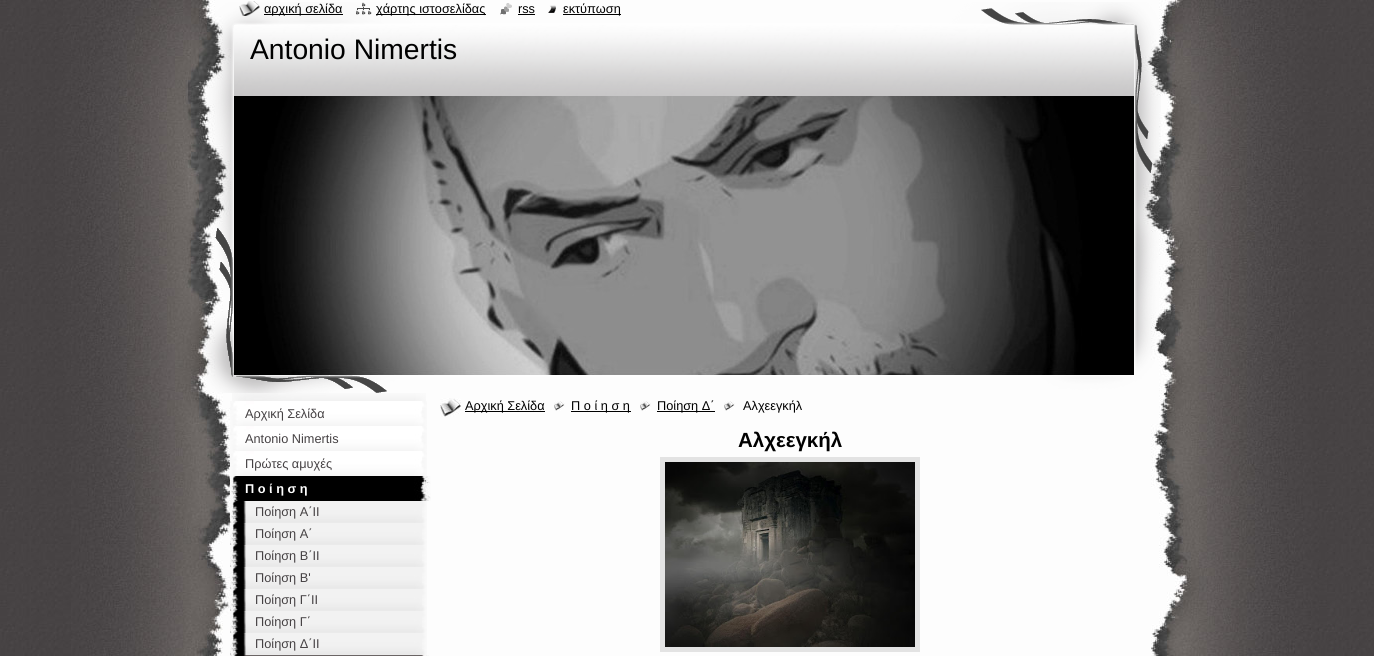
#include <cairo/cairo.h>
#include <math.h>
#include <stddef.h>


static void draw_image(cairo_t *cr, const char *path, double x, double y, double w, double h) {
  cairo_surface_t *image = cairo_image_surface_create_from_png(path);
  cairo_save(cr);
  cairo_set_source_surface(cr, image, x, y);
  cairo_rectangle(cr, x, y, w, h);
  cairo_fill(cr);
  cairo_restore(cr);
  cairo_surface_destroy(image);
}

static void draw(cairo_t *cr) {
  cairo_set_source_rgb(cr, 1, 1, 1);
  cairo_paint(cr);
  draw_image(cr, "images/1.png", 0, 0, 1374, 656);
  draw_image(cr, "images/6.png", 204, 2, 957, 391);
  draw_image(cr, "images/2.png", 239, 1, 21, 15);
  cairo_set_source_rgb(cr, 0, 0, 0);
  cairo_rectangle(cr, 264, 14, 79, 1);
  cairo_fill(cr);
  draw_image(cr, "images/3.png", 356, 2, 16, 13);
  cairo_rectangle(cr, 376, 14, 110, 1);
  cairo_fill(cr);
  draw_image(cr, "images/4.png", 500, 3, 12, 12);
  cairo_rectangle(cr, 518, 14, 17, 1);
  cairo_fill(cr);
  draw_image(cr, "images/5.png", 548, 5, 8, 8);
  cairo_rectangle(cr, 563, 14, 58, 1);
  cairo_fill(cr);
  draw_image(cr, "images/7.png", 234, 96, 900, 279);
  draw_image(cr, "images/8.png", 232, 393, 194, 8);
  draw_image(cr, "images/9.png", 230, 401, 197, 25);
  draw_image(cr, "images/9.png", 230, 426, 197, 25);
  draw_image(cr, "images/9.png", 230, 451, 197, 25);
  draw_image(cr, "images/10.png", 230, 476, 201, 25);
  draw_image(cr, "images/11.png", 230, 501, 197, 22);
  draw_image(cr, "images/11.png", 230, 523, 197, 22);
  draw_image(cr, "images/11.png", 230, 545, 197, 22);
  draw_image(cr, "images/11.png", 230, 567, 197, 22);
  draw_image(cr, "images/11.png", 230, 589, 197, 22);
  draw_image(cr, "images/11.png", 230, 611, 197, 22);
  draw_image(cr, "images/11.png", 230, 633, 197, 22);
  draw_image(cr, "images/12.png", 230, 655, 199, 1);
  draw_image(cr, "images/13.png", 440, 398, 21, 19);
  cairo_rectangle(cr, 465, 411, 80, 1);
  cairo_fill(cr);
  draw_image(cr, "images/14.png", 554, 401, 11, 10);
  cairo_rectangle(cr, 571, 411, 60, 1);
  cairo_fill(cr);
  draw_image(cr, "images/14.png", 640, 401, 11, 10);
  cairo_rectangle(cr, 657, 411, 58, 1);
  cairo_fill(cr);
  draw_image(cr, "images/14.png", 724, 401, 11, 10);
  cairo_rectangle(cr, 662.5, 459.5, 255, 190);
  cairo_set_source_rgb(cr, 227 / 255.0, 227 / 255.0, 227 / 255.0);
  cairo_set_line_width(cr, 5);
  cairo_stroke(cr);
  draw_image(cr, "images/15.png", 665, 462, 250, 185);
  cairo_select_font_face(cr, "Liberation Sans", CAIRO_FONT_SLANT_NORMAL, CAIRO_FONT_WEIGHT_NORMAL);
  cairo_set_font_size(cr, 12.75);
  cairo_set_source_rgb(cr, 0, 0, 0);
  cairo_move_to(cr, 264, 13);
  cairo_show_text(cr, "αρχική σελίδα");
  cairo_move_to(cr, 376, 13);
  cairo_show_text(cr, "χάρτης ιστοσελίδας");
  cairo_move_to(cr, 518, 13);
  cairo_show_text(cr, "rss");
  cairo_move_to(cr, 563, 13);
  cairo_show_text(cr, "εκτύπωση");
  cairo_set_font_size(cr, 28.25);
  cairo_move_to(cr, 250, 59);
  cairo_show_text(cr, "Antonio Νimertis");
  cairo_set_font_size(cr, 12.75);
  cairo_set_source_rgb(cr, 69 / 255.0, 65 / 255.0, 67 / 255.0);
  cairo_move_to(cr, 245, 418);
  cairo_show_text(cr, "Αρχική Σελίδα");
  cairo_move_to(cr, 245, 443);
  cairo_show_text(cr, "Antonio Nimertis");
  cairo_move_to(cr, 245, 468);
  cairo_show_text(cr, "Πρώτες αμυχές");
  cairo_select_font_face(cr, "Liberation Sans", CAIRO_FONT_SLANT_NORMAL, CAIRO_FONT_WEIGHT_BOLD);
  cairo_set_source_rgb(cr, 1, 1, 1);
  cairo_move_to(cr, 245, 493);
  cairo_show_text(cr, "Π ο ί η σ η");
  cairo_select_font_face(cr, "Liberation Sans", CAIRO_FONT_SLANT_NORMAL, CAIRO_FONT_WEIGHT_NORMAL);
  cairo_set_source_rgb(cr, 69 / 255.0, 65 / 255.0, 67 / 255.0);
  cairo_move_to(cr, 255, 516);
  cairo_show_text(cr, "Ποίηση Α΄ΙΙ");
  cairo_move_to(cr, 255, 538);
  cairo_show_text(cr, "Ποίηση Α΄");
  cairo_move_to(cr, 255, 560);
  cairo_show_text(cr, "Ποίηση Β΄ΙΙ");
  cairo_move_to(cr, 255, 582);
  cairo_show_text(cr, "Ποίηση Β'");
  cairo_move_to(cr, 255, 604);
  cairo_show_text(cr, "Ποίηση Γ΄ΙΙ");
  cairo_move_to(cr, 255, 626);
  cairo_show_text(cr, "Ποίηση Γ΄");
  cairo_move_to(cr, 255, 648);
  cairo_show_text(cr, "Ποίηση Δ΄ΙΙ");
  cairo_set_source_rgb(cr, 0, 0, 0);
  cairo_move_to(cr, 465, 410);
  cairo_show_text(cr, "Αρχική Σελίδα");
  cairo_move_to(cr, 571, 410);
  cairo_show_text(cr, "Π ο ί η σ η");
  cairo_move_to(cr, 657, 410);
  cairo_show_text(cr, "Ποίηση Δ΄");
  cairo_move_to(cr, 743, 410);
  cairo_show_text(cr, "Αλχεεγκήλ");
  cairo_select_font_face(cr, "Liberation Sans", CAIRO_FONT_SLANT_NORMAL, CAIRO_FONT_WEIGHT_BOLD);
  cairo_set_font_size(cr, 20.5);
  cairo_move_to(cr, 738, 447);
  cairo_show_text(cr, "Αλχεεγκήλ");
}

int main(void) {
  cairo_surface_t *surface = cairo_image_surface_create(CAIRO_FORMAT_RGB24, 1374, 656);
  cairo_t *cr = cairo_create(surface);
  cairo_font_options_t *options = cairo_font_options_create();
  cairo_font_options_set_hint_metrics(options, CAIRO_HINT_METRICS_OFF);
  cairo_font_options_set_hint_style(options, CAIRO_HINT_STYLE_NONE);
  cairo_set_font_options(cr, options);
  cairo_set_miter_limit(cr, 4);
  draw(cr);
  cairo_surface_write_to_png(surface, "out.png");
  cairo_font_options_destroy(options);
  cairo_destroy(cr);
  cairo_surface_destroy(surface);
  return 0;
}
